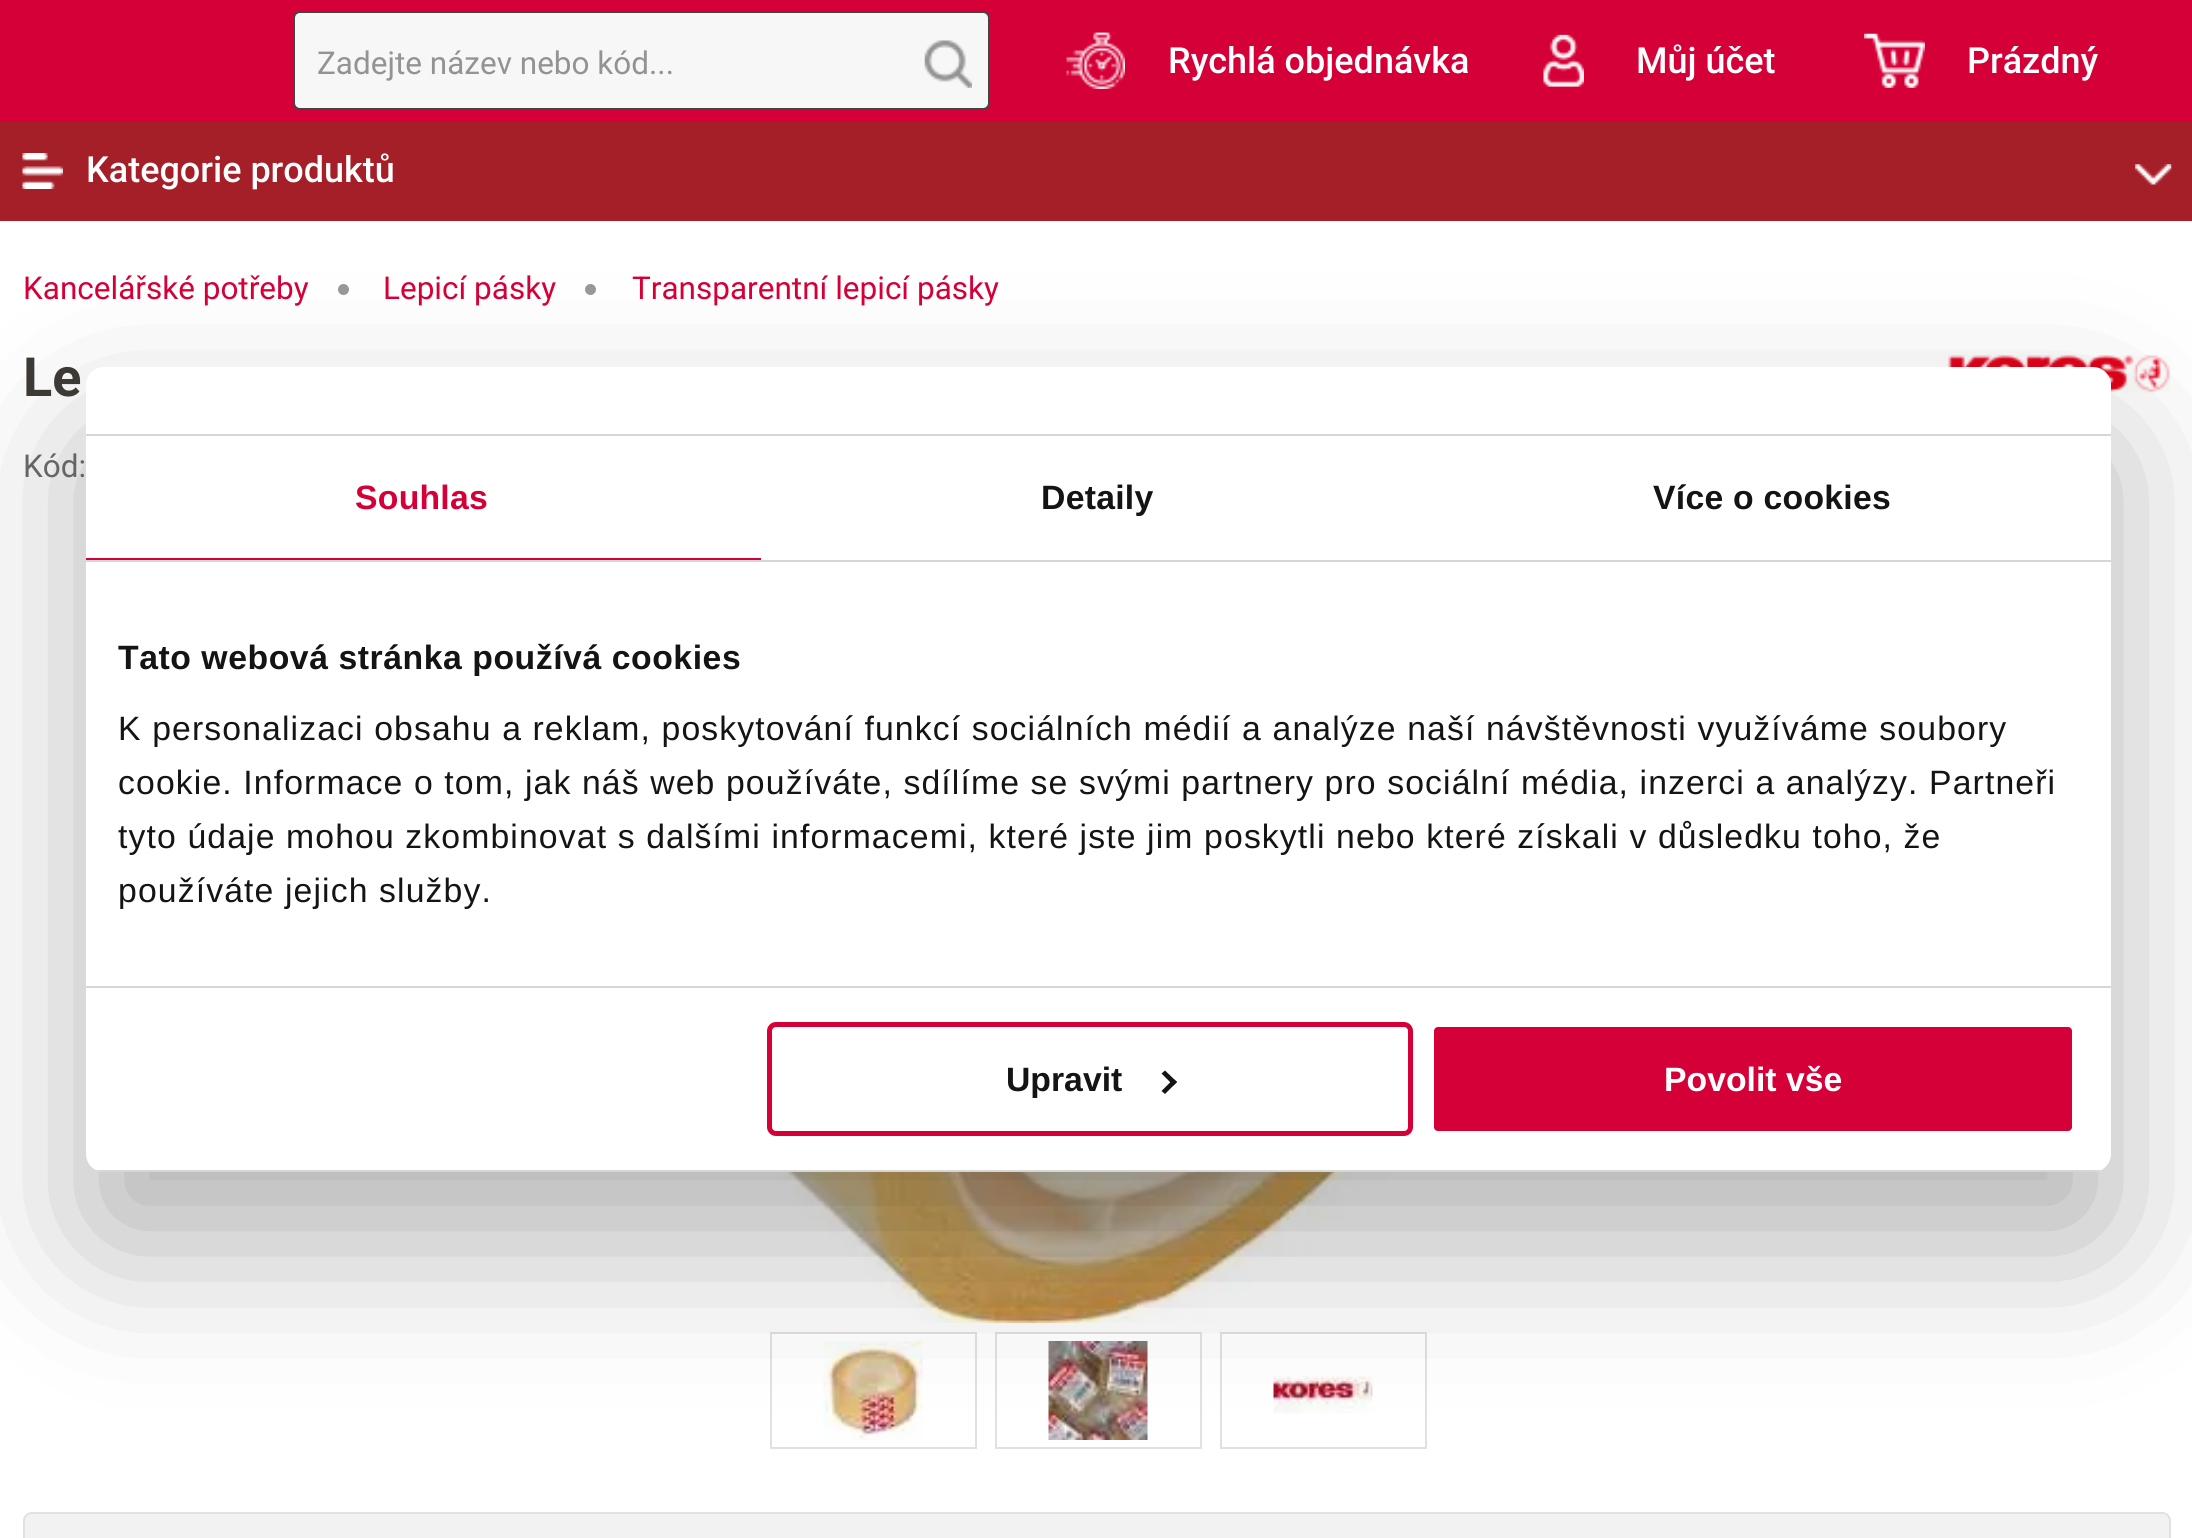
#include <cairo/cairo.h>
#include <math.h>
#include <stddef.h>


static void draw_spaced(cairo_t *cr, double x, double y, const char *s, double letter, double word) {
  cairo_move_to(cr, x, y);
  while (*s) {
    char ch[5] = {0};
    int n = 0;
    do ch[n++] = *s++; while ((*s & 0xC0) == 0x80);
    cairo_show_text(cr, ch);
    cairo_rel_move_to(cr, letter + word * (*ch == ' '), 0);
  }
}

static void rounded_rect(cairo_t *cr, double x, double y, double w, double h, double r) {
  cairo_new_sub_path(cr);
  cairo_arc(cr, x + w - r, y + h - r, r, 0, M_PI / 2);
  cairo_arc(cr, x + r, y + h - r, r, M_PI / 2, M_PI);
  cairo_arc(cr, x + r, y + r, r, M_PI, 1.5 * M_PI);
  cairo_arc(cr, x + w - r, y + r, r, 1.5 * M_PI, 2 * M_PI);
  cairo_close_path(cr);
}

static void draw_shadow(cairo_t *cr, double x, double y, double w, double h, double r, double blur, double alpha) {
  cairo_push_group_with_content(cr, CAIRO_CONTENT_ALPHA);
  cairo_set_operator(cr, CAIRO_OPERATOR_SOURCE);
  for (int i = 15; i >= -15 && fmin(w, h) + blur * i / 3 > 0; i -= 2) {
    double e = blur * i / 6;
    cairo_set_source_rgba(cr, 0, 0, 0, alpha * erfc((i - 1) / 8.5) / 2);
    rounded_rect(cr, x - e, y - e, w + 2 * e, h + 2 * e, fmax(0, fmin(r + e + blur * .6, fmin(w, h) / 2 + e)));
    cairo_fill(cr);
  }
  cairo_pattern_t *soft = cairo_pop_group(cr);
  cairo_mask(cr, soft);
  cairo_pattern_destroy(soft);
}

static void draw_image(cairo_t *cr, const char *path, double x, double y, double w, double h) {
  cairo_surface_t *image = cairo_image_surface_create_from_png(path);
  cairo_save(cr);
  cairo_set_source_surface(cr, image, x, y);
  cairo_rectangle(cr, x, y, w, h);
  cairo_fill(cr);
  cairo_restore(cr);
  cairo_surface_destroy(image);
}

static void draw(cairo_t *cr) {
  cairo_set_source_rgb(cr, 1, 1, 1);
  cairo_paint(cr);
  cairo_set_source_rgb(cr, 213 / 255.0, 0, 55 / 255.0);
  cairo_rectangle(cr, 0, 0, 2192, 122);
  cairo_fill(cr);
  cairo_set_source_rgb(cr, 247 / 255.0, 247 / 255.0, 247 / 255.0);
  rounded_rect(cr, 294, 12, 695, 97, 6);
  cairo_fill_preserve(cr);
  cairo_set_source_rgb(cr, 68 / 255.0, 68 / 255.0, 68 / 255.0);
  cairo_stroke(cr);
  draw_image(cr, "images/1.png", 924, 40, 48, 48);
  draw_image(cr, "images/2.png", 1066, 32, 59, 57);
  draw_image(cr, "images/3.png", 1543, 34, 41, 53);
  draw_image(cr, "images/4.png", 1864, 33, 61, 55);
  cairo_set_source_rgb(cr, 165 / 255.0, 31 / 255.0, 41 / 255.0);
  cairo_rectangle(cr, 0, 122, 2192, 99);
  cairo_fill(cr);
  draw_image(cr, "images/5.png", 22, 153, 41, 36);
  draw_image(cr, "images/6.png", 2135, 164, 37, 21);
  cairo_set_source_rgb(cr, 153 / 255.0, 153 / 255.0, 153 / 255.0);
  cairo_arc(cr, 343.5, 289.5, 5.5, 0, 2 * M_PI);
  cairo_fill(cr);
  cairo_arc(cr, 590.5, 289.5, 5.5, 0, 2 * M_PI);
  cairo_fill(cr);
  draw_image(cr, "images/7.png", 1948, 355, 223, 38);
  draw_image(cr, "images/8.png", 704, 1172, 788, 151);
  cairo_rectangle(cr, 771, 1333, 205, 115);
  cairo_set_source_rgb(cr, 225 / 255.0, 225 / 255.0, 225 / 255.0);
  cairo_stroke(cr);
  draw_image(cr, "images/9.png", 823, 1341, 100, 99);
  cairo_rectangle(cr, 996, 1333, 205, 115);
  cairo_stroke(cr);
  draw_image(cr, "images/10.png", 1048, 1341, 100, 99);
  cairo_rectangle(cr, 1221, 1333, 205, 115);
  cairo_stroke(cr);
  draw_image(cr, "images/11.png", 1273, 1376, 100, 38);
  cairo_set_source_rgb(cr, 242 / 255.0, 242 / 255.0, 242 / 255.0);
  cairo_new_path(cr);
  cairo_move_to(cr, 32, 1513);
  cairo_line_to(cr, 2162, 1513);
  cairo_curve_to(cr, 2166.5, 1513, 2170, 1516.5, 2170, 1521);
  cairo_line_to(cr, 2170, 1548);
  cairo_line_to(cr, 24, 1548);
  cairo_line_to(cr, 24, 1521);
  cairo_curve_to(cr, 24, 1516.5, 27.5, 1513, 32, 1513);
  cairo_close_path(cr);
  cairo_fill_preserve(cr);
  cairo_set_source_rgb(cr, 225 / 255.0, 225 / 255.0, 225 / 255.0);
  cairo_stroke(cr);
  cairo_set_source_rgb(cr, 0, 0, 0);
  draw_shadow(cr, 86, 439, 2025, 805, 18, 76.5, 0.3);
  cairo_set_source_rgb(cr, 1, 1, 1);
  rounded_rect(cr, 86, 367, 2025, 805, 18);
  cairo_fill(cr);
  cairo_set_source_rgb(cr, 214 / 255.0, 214 / 255.0, 214 / 255.0);
  cairo_rectangle(cr, 86, 434, 2025, 2);
  cairo_fill(cr);
  cairo_rectangle(cr, 86, 560, 2025, 2);
  cairo_fill(cr);
  cairo_set_source_rgb(cr, 213 / 255.0, 0, 55 / 255.0);
  cairo_rectangle(cr, 86, 558, 675, 2);
  cairo_fill(cr);
  cairo_set_source_rgb(cr, 214 / 255.0, 214 / 255.0, 214 / 255.0);
  cairo_rectangle(cr, 86, 986, 2025, 2);
  cairo_fill(cr);
  cairo_save(cr);
  rounded_rect(cr, 86, 367, 2025, 805, 18);
  cairo_clip(cr);
  cairo_rectangle(cr, 96, 1170, 2005, 2);
  cairo_fill(cr);
  cairo_restore(cr);
  rounded_rect(cr, 769.5, 1024.5, 641, 109, 6.5);
  cairo_set_source_rgb(cr, 213 / 255.0, 0, 55 / 255.0);
  cairo_set_line_width(cr, 5);
  cairo_stroke(cr);
  cairo_set_source_rgb(cr, 20 / 255.0, 20 / 255.0, 20 / 255.0);
  cairo_new_path(cr);
  cairo_move_to(cr, 1165, 1070.5);
  cairo_line_to(cr, 1177, 1082);
  cairo_line_to(cr, 1173.5, 1085.5);
  cairo_line_to(cr, 1161.5, 1073.5);
  cairo_close_path(cr);
  cairo_fill(cr);
  cairo_new_path(cr);
  cairo_move_to(cr, 1173.5, 1079);
  cairo_line_to(cr, 1177, 1082);
  cairo_line_to(cr, 1165, 1094);
  cairo_line_to(cr, 1161.5, 1091);
  cairo_close_path(cr);
  cairo_fill(cr);
  cairo_set_source_rgb(cr, 213 / 255.0, 0, 55 / 255.0);
  rounded_rect(cr, 1431.5, 1024.5, 643, 109, 6.5);
  cairo_fill_preserve(cr);
  cairo_set_source_rgb(cr, 1, 1, 1);
  cairo_stroke(cr);
  cairo_select_font_face(cr, "Roboto", CAIRO_FONT_SLANT_NORMAL, CAIRO_FONT_WEIGHT_NORMAL);
  cairo_set_font_size(cr, 31.5);
  cairo_set_source_rgb(cr, 147 / 255.0, 147 / 255.0, 147 / 255.0);
  cairo_move_to(cr, 317, 74);
  cairo_show_text(cr, "Zadejte název nebo kód...");
  cairo_select_font_face(cr, "Roboto Medium", CAIRO_FONT_SLANT_NORMAL, CAIRO_FONT_WEIGHT_NORMAL);
  cairo_set_font_size(cr, 36);
  cairo_set_source_rgb(cr, 1, 1, 1);
  cairo_move_to(cr, 1168, 73);
  cairo_show_text(cr, "Rychlá objednávka");
  cairo_move_to(cr, 1636, 73);
  cairo_show_text(cr, "Můj účet");
  cairo_move_to(cr, 1967, 73);
  cairo_show_text(cr, "Prázdný");
  cairo_move_to(cr, 86, 182);
  cairo_show_text(cr, "Kategorie produktů");
  cairo_select_font_face(cr, "Roboto", CAIRO_FONT_SLANT_NORMAL, CAIRO_FONT_WEIGHT_NORMAL);
  cairo_set_font_size(cr, 31.5);
  cairo_set_source_rgb(cr, 213 / 255.0, 0, 55 / 255.0);
  cairo_move_to(cr, 23, 299);
  cairo_show_text(cr, "Kancelářské potřeby");
  cairo_move_to(cr, 383, 299);
  cairo_show_text(cr, "Lepicí pásky");
  cairo_move_to(cr, 632, 299);
  cairo_show_text(cr, "Transparentní lepicí pásky");
  cairo_select_font_face(cr, "Roboto", CAIRO_FONT_SLANT_NORMAL, CAIRO_FONT_WEIGHT_BOLD);
  cairo_set_font_size(cr, 54);
  cairo_set_source_rgb(cr, 61 / 255.0, 57 / 255.0, 53 / 255.0);
  cairo_move_to(cr, 23, 396);
  cairo_show_text(cr, "Le");
  cairo_select_font_face(cr, "Roboto", CAIRO_FONT_SLANT_NORMAL, CAIRO_FONT_WEIGHT_NORMAL);
  cairo_set_font_size(cr, 31.5);
  cairo_set_source_rgb(cr, 101 / 255.0, 101 / 255.0, 101 / 255.0);
  cairo_move_to(cr, 23, 477);
  cairo_show_text(cr, "Kód:");
  cairo_select_font_face(cr, "Liberation Sans", CAIRO_FONT_SLANT_NORMAL, CAIRO_FONT_WEIGHT_BOLD);
  cairo_set_font_size(cr, 33.75);
  cairo_set_source_rgb(cr, 213 / 255.0, 0, 55 / 255.0);
  draw_spaced(cr, 355, 509, "Souhlas", 0.25, 0);
  cairo_set_source_rgb(cr, 20 / 255.0, 20 / 255.0, 20 / 255.0);
  draw_spaced(cr, 1041, 509, "Detaily", 0.25, 0);
  draw_spaced(cr, 1653, 509, "Více o cookies", 0.25, 0);
  draw_spaced(cr, 118, 669, "Tato webová stránka používá cookies", 0.55, 0);
  cairo_select_font_face(cr, "Liberation Sans", CAIRO_FONT_SLANT_NORMAL, CAIRO_FONT_WEIGHT_NORMAL);
  draw_spaced(cr, 118, 740, "K personalizaci obsahu a reklam, poskytování funkcí sociálních médií a analýze naší návštěvnosti využíváme soubory", 1.12, 0);
  draw_spaced(cr, 118, 794, "cookie. Informace o tom, jak náš web používáte, sdílíme se svými partnery pro sociální média, inzerci a analýzy. Partneři", 1.12, 0);
  draw_spaced(cr, 118, 848, "tyto údaje mohou zkombinovat s dalšími informacemi, které jste jim poskytli nebo které získali v důsledku toho, že", 1.12, 0);
  draw_spaced(cr, 118, 902, "používáte jejich služby.", 1.12, 0);
  cairo_select_font_face(cr, "Liberation Sans", CAIRO_FONT_SLANT_NORMAL, CAIRO_FONT_WEIGHT_BOLD);
  cairo_move_to(cr, 1006, 1091);
  cairo_show_text(cr, "Upravit");
  cairo_set_source_rgb(cr, 1, 1, 1);
  cairo_move_to(cr, 1664, 1091);
  cairo_show_text(cr, "Povolit vše");
}

int main(void) {
  cairo_surface_t *surface = cairo_image_surface_create(CAIRO_FORMAT_RGB24, 2192, 1538);
  cairo_t *cr = cairo_create(surface);
  cairo_font_options_t *options = cairo_font_options_create();
  cairo_font_options_set_hint_metrics(options, CAIRO_HINT_METRICS_OFF);
  cairo_font_options_set_hint_style(options, CAIRO_HINT_STYLE_NONE);
  cairo_set_font_options(cr, options);
  cairo_set_miter_limit(cr, 4);
  draw(cr);
  cairo_surface_write_to_png(surface, "out.png");
  cairo_font_options_destroy(options);
  cairo_destroy(cr);
  cairo_surface_destroy(surface);
  return 0;
}
